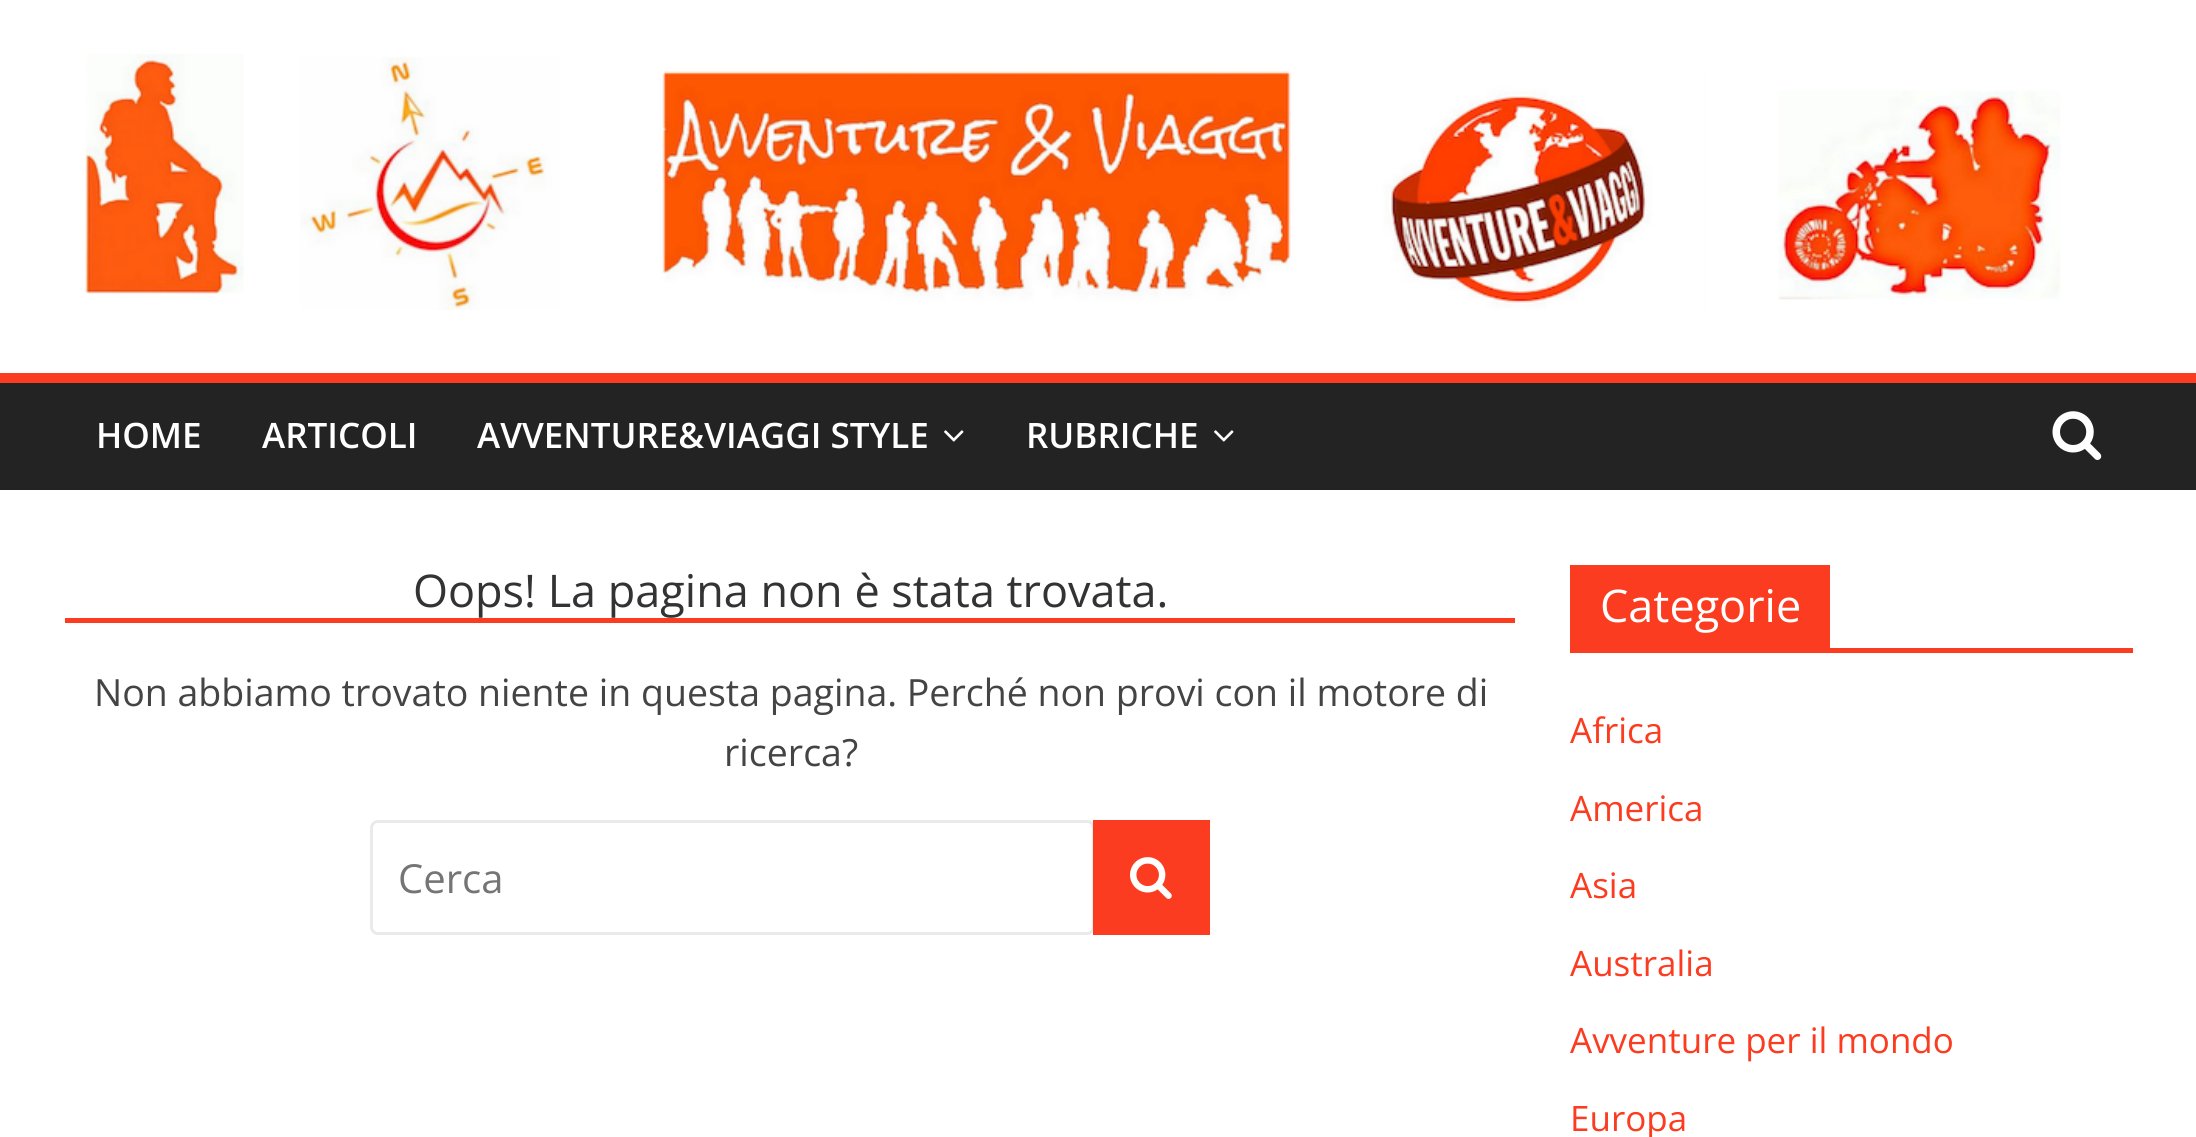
#include <cairo/cairo.h>
#include <math.h>
#include <stddef.h>


static void rounded_rect(cairo_t *cr, double x, double y, double w, double h, double r) {
  cairo_new_sub_path(cr);
  cairo_arc(cr, x + w - r, y + h - r, r, 0, M_PI / 2);
  cairo_arc(cr, x + r, y + h - r, r, M_PI / 2, M_PI);
  cairo_arc(cr, x + r, y + r, r, M_PI, 1.5 * M_PI);
  cairo_arc(cr, x + w - r, y + r, r, 1.5 * M_PI, 2 * M_PI);
  cairo_close_path(cr);
}

static void draw_image(cairo_t *cr, const char *path, double x, double y, double w, double h) {
  cairo_surface_t *image = cairo_image_surface_create_from_png(path);
  cairo_save(cr);
  cairo_set_source_surface(cr, image, x, y);
  cairo_rectangle(cr, x, y, w, h);
  cairo_fill(cr);
  cairo_restore(cr);
  cairo_surface_destroy(image);
}

static void draw(cairo_t *cr) {
  cairo_set_source_rgb(cr, 1, 1, 1);
  cairo_paint(cr);
  draw_image(cr, "images/1.png", 85, 53, 1976, 257);
  cairo_set_source_rgb(cr, 35 / 255.0, 35 / 255.0, 35 / 255.0);
  cairo_rectangle(cr, 0, 383, 2196, 107);
  cairo_fill(cr);
  cairo_set_source_rgb(cr, 251 / 255.0, 60 / 255.0, 32 / 255.0);
  cairo_rectangle(cr, 0, 373, 2196, 10);
  cairo_fill(cr);
  draw_image(cr, "images/2.png", 944, 430, 20, 12);
  draw_image(cr, "images/2.png", 1214, 430, 20, 12);
  draw_image(cr, "images/3.png", 2052, 411, 50, 49);
  cairo_rectangle(cr, 65, 618, 1450, 5);
  cairo_fill(cr);
  rounded_rect(cr, 371.5, 821.5, 722, 112, 6.5);
  cairo_set_source_rgb(cr, 234 / 255.0, 234 / 255.0, 234 / 255.0);
  cairo_set_line_width(cr, 3);
  cairo_stroke(cr);
  cairo_set_source_rgb(cr, 251 / 255.0, 60 / 255.0, 32 / 255.0);
  cairo_rectangle(cr, 1093, 820, 117, 115);
  cairo_fill(cr);
  draw_image(cr, "images/4.png", 1130, 857, 42, 42);
  cairo_rectangle(cr, 1570, 648, 563, 5);
  cairo_fill(cr);
  cairo_rectangle(cr, 1570, 565, 260, 83);
  cairo_fill(cr);
  cairo_select_font_face(cr, "Open Sans SemiBold", CAIRO_FONT_SLANT_NORMAL, CAIRO_FONT_WEIGHT_NORMAL);
  cairo_set_font_size(cr, 35);
  cairo_set_source_rgb(cr, 1, 1, 1);
  cairo_move_to(cr, 96, 448);
  cairo_show_text(cr, "HOME");
  cairo_move_to(cr, 262, 448);
  cairo_show_text(cr, "ARTICOLI");
  cairo_move_to(cr, 477, 448);
  cairo_show_text(cr, "AVVENTURE&VIAGGI STYLE");
  cairo_move_to(cr, 1026, 448);
  cairo_show_text(cr, "RUBRICHE");
  cairo_select_font_face(cr, "Open Sans", CAIRO_FONT_SLANT_NORMAL, CAIRO_FONT_WEIGHT_NORMAL);
  cairo_set_font_size(cr, 45);
  cairo_set_source_rgb(cr, 51 / 255.0, 51 / 255.0, 51 / 255.0);
  cairo_move_to(cr, 413, 607);
  cairo_show_text(cr, "Oops! La pagina non è stata trovata.");
  cairo_set_font_size(cr, 37.5);
  cairo_set_source_rgb(cr, 68 / 255.0, 68 / 255.0, 68 / 255.0);
  cairo_move_to(cr, 94, 706);
  cairo_show_text(cr, "Non abbiamo trovato niente in questa pagina. Perché non provi con il motore di");
  cairo_move_to(cr, 724, 766);
  cairo_show_text(cr, "ricerca?");
  cairo_set_font_size(cr, 40);
  cairo_set_source_rgb(cr, 117 / 255.0, 117 / 255.0, 117 / 255.0);
  cairo_move_to(cr, 398, 893);
  cairo_show_text(cr, "Cerca");
  cairo_set_font_size(cr, 45);
  cairo_set_source_rgb(cr, 1, 1, 1);
  cairo_move_to(cr, 1600, 622);
  cairo_show_text(cr, "Categorie");
  cairo_set_font_size(cr, 35);
  cairo_set_source_rgb(cr, 251 / 255.0, 60 / 255.0, 32 / 255.0);
  cairo_move_to(cr, 1570, 743);
  cairo_show_text(cr, "Africa");
  cairo_move_to(cr, 1570, 821);
  cairo_show_text(cr, "America");
  cairo_move_to(cr, 1570, 898);
  cairo_show_text(cr, "Asia");
  cairo_move_to(cr, 1570, 976);
  cairo_show_text(cr, "Australia");
  cairo_move_to(cr, 1570, 1053);
  cairo_show_text(cr, "Avventure per il mondo");
  cairo_move_to(cr, 1570, 1131);
  cairo_show_text(cr, "Europa");
}

int main(void) {
  cairo_surface_t *surface = cairo_image_surface_create(CAIRO_FORMAT_RGB24, 2196, 1137);
  cairo_t *cr = cairo_create(surface);
  cairo_font_options_t *options = cairo_font_options_create();
  cairo_font_options_set_hint_metrics(options, CAIRO_HINT_METRICS_OFF);
  cairo_font_options_set_hint_style(options, CAIRO_HINT_STYLE_NONE);
  cairo_set_font_options(cr, options);
  cairo_set_miter_limit(cr, 4);
  draw(cr);
  cairo_surface_write_to_png(surface, "out.png");
  cairo_font_options_destroy(options);
  cairo_destroy(cr);
  cairo_surface_destroy(surface);
  return 0;
}
